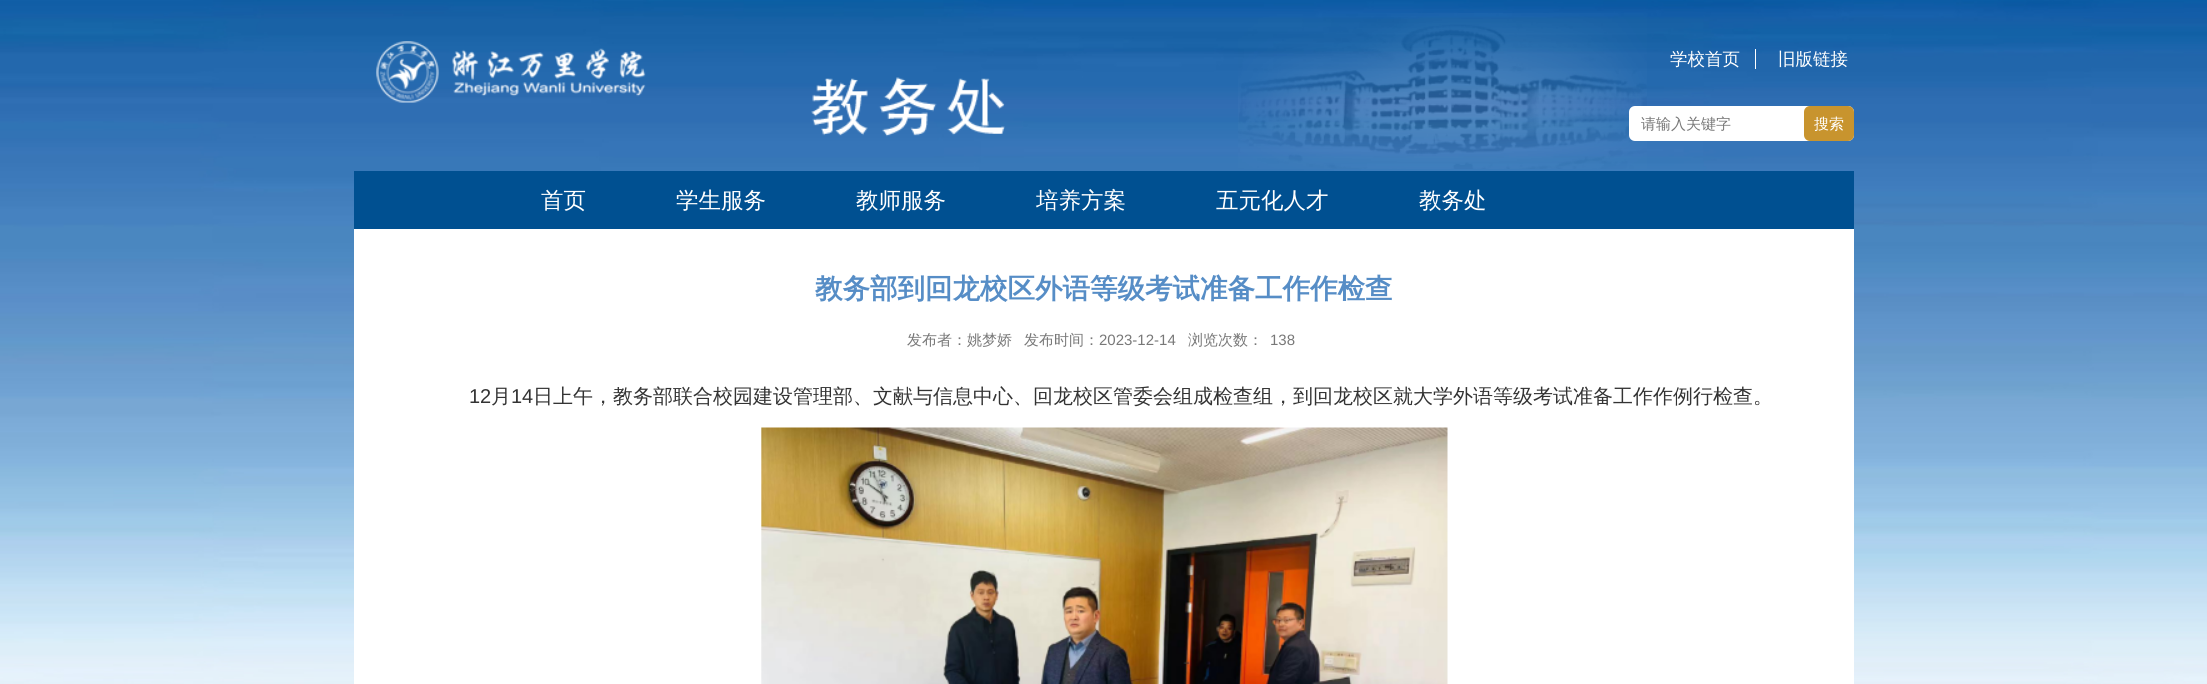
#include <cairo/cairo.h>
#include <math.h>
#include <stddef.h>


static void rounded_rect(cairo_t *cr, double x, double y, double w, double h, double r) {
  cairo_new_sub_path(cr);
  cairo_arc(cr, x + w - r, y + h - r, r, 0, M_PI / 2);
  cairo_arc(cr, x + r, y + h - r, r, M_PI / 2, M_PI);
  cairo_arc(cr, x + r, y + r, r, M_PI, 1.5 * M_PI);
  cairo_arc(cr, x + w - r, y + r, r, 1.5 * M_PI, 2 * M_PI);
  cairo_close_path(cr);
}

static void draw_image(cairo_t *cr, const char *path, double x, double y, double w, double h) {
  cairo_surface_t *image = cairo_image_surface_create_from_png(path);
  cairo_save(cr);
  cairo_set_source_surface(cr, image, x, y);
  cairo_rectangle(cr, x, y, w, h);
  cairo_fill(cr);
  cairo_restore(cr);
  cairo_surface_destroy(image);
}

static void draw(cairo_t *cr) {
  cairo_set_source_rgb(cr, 1, 1, 1);
  cairo_paint(cr);
  draw_image(cr, "images/1.png", 0, 0, 2207, 684);
  draw_image(cr, "images/2.png", 1238, 13, 409, 156);
  draw_image(cr, "images/3.png", 376, 41, 629, 96);
  cairo_set_source_rgb(cr, 1, 1, 1);
  cairo_rectangle(cr, 1755, 49, 1, 20);
  cairo_fill(cr);
  rounded_rect(cr, 1629, 106, 225, 35, 6);
  cairo_fill(cr);
  cairo_set_source_rgb(cr, 200 / 255.0, 148 / 255.0, 46 / 255.0);
  rounded_rect(cr, 1804, 106, 50, 35, 6);
  cairo_fill(cr);
  cairo_set_source_rgb(cr, 0, 80 / 255.0, 145 / 255.0);
  cairo_rectangle(cr, 354, 171, 1500, 58);
  cairo_fill(cr);
  cairo_set_source_rgb(cr, 1, 1, 1);
  cairo_rectangle(cr, 354, 229, 1500, 455);
  cairo_fill(cr);
  draw_image(cr, "images/4.png", 761, 427, 687, 257);
  cairo_select_font_face(cr, "WenQuanYi Zen Hei Medium", CAIRO_FONT_SLANT_NORMAL, CAIRO_FONT_WEIGHT_NORMAL);
  cairo_set_font_size(cr, 17.5);
  cairo_move_to(cr, 1670, 65);
  cairo_show_text(cr, "学校首页");
  cairo_move_to(cr, 1778, 65);
  cairo_show_text(cr, "旧版链接");
  cairo_set_font_size(cr, 15);
  cairo_set_source_rgb(cr, 120 / 255.0, 120 / 255.0, 120 / 255.0);
  cairo_move_to(cr, 1641, 129);
  cairo_show_text(cr, "请输入关键字");
  cairo_set_source_rgb(cr, 1, 1, 1);
  cairo_move_to(cr, 1814, 129);
  cairo_show_text(cr, "搜索");
  cairo_set_font_size(cr, 22.5);
  cairo_move_to(cr, 541, 208);
  cairo_show_text(cr, "首页");
  cairo_move_to(cr, 676, 208);
  cairo_show_text(cr, "学生服务");
  cairo_move_to(cr, 856, 208);
  cairo_show_text(cr, "教师服务");
  cairo_move_to(cr, 1036, 208);
  cairo_show_text(cr, "培养方案");
  cairo_move_to(cr, 1216, 208);
  cairo_show_text(cr, "五元化人才");
  cairo_move_to(cr, 1419, 208);
  cairo_show_text(cr, "教务处");
  cairo_select_font_face(cr, "WenQuanYi Zen Hei", CAIRO_FONT_SLANT_NORMAL, CAIRO_FONT_WEIGHT_BOLD);
  cairo_set_font_size(cr, 27.5);
  cairo_set_source_rgb(cr, 86 / 255.0, 141 / 255.0, 198 / 255.0);
  cairo_move_to(cr, 815, 298);
  cairo_show_text(cr, "教务部到回龙校区外语等级考试准备工作作检查");
  cairo_select_font_face(cr, "WenQuanYi Zen Hei Medium", CAIRO_FONT_SLANT_NORMAL, CAIRO_FONT_WEIGHT_NORMAL);
  cairo_set_font_size(cr, 15);
  cairo_set_source_rgb(cr, 120 / 255.0, 120 / 255.0, 120 / 255.0);
  cairo_move_to(cr, 907, 345);
  cairo_show_text(cr, "发布者：姚梦娇");
  cairo_move_to(cr, 1024, 345);
  cairo_show_text(cr, "发布时间：");
  cairo_select_font_face(cr, "Liberation Sans", CAIRO_FONT_SLANT_NORMAL, CAIRO_FONT_WEIGHT_NORMAL);
  cairo_move_to(cr, 1099, 345);
  cairo_show_text(cr, "2023-12-14");
  cairo_select_font_face(cr, "WenQuanYi Zen Hei Medium", CAIRO_FONT_SLANT_NORMAL, CAIRO_FONT_WEIGHT_NORMAL);
  cairo_move_to(cr, 1188, 345);
  cairo_show_text(cr, "浏览次数：");
  cairo_select_font_face(cr, "Liberation Sans", CAIRO_FONT_SLANT_NORMAL, CAIRO_FONT_WEIGHT_NORMAL);
  cairo_move_to(cr, 1270, 345);
  cairo_show_text(cr, "138");
  cairo_set_font_size(cr, 20);
  cairo_set_source_rgb(cr, 51 / 255.0, 51 / 255.0, 51 / 255.0);
  cairo_move_to(cr, 469, 403);
  cairo_show_text(cr, "12");
  cairo_select_font_face(cr, "WenQuanYi Zen Hei Medium", CAIRO_FONT_SLANT_NORMAL, CAIRO_FONT_WEIGHT_NORMAL);
  cairo_move_to(cr, 491, 403);
  cairo_show_text(cr, "月");
  cairo_select_font_face(cr, "Liberation Sans", CAIRO_FONT_SLANT_NORMAL, CAIRO_FONT_WEIGHT_NORMAL);
  cairo_move_to(cr, 511, 403);
  cairo_show_text(cr, "14");
  cairo_select_font_face(cr, "WenQuanYi Zen Hei Medium", CAIRO_FONT_SLANT_NORMAL, CAIRO_FONT_WEIGHT_NORMAL);
  cairo_move_to(cr, 533, 403);
  cairo_show_text(cr, "日上午，教务部联合校园建设管理部、文献与信息中心、回龙校区管委会组成检查组，到回龙校区就大学外语等级考试准备工作作例行检查。");
}

int main(void) {
  cairo_surface_t *surface = cairo_image_surface_create(CAIRO_FORMAT_RGB24, 2207, 684);
  cairo_t *cr = cairo_create(surface);
  cairo_font_options_t *options = cairo_font_options_create();
  cairo_font_options_set_hint_metrics(options, CAIRO_HINT_METRICS_OFF);
  cairo_font_options_set_hint_style(options, CAIRO_HINT_STYLE_NONE);
  cairo_set_font_options(cr, options);
  cairo_set_miter_limit(cr, 4);
  draw(cr);
  cairo_surface_write_to_png(surface, "out.png");
  cairo_font_options_destroy(options);
  cairo_destroy(cr);
  cairo_surface_destroy(surface);
  return 0;
}
